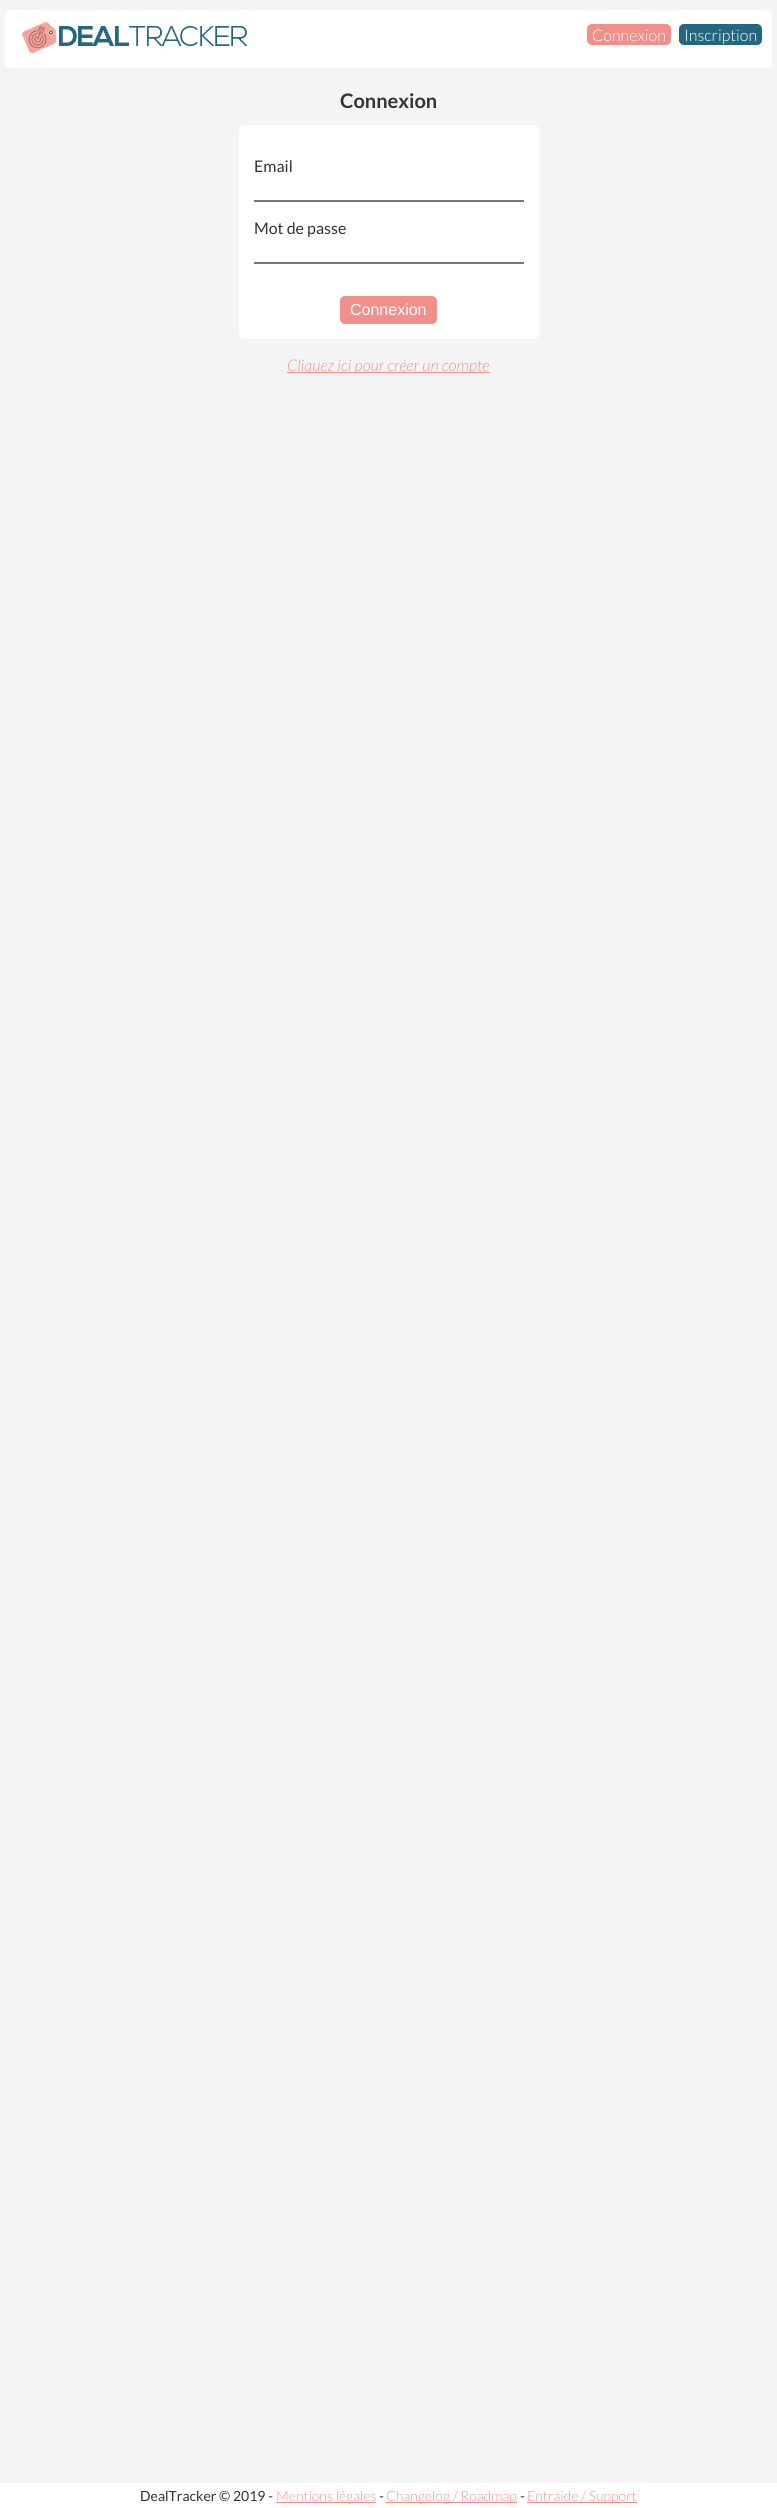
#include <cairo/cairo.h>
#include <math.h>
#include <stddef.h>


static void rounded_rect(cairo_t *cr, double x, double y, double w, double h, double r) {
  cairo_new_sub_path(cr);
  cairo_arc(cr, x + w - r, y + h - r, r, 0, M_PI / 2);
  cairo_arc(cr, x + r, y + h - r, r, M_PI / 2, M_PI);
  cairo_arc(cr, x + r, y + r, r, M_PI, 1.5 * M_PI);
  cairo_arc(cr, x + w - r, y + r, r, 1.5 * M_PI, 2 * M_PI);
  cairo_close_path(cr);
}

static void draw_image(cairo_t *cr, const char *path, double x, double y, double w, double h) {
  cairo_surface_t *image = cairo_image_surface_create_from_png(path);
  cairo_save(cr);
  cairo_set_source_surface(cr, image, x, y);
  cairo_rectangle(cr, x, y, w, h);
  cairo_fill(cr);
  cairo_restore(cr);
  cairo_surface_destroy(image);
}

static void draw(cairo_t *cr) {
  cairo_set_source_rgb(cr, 244 / 255.0, 244 / 255.0, 244 / 255.0);
  cairo_paint(cr);
  cairo_set_source_rgb(cr, 1, 1, 1);
  rounded_rect(cr, 5, 10, 767, 58, 5);
  cairo_fill(cr);
  draw_image(cr, "images/1.png", 21, 21, 226, 34);
  cairo_set_source_rgb(cr, 241 / 255.0, 144 / 255.0, 139 / 255.0);
  rounded_rect(cr, 587, 24, 84, 21, 5);
  cairo_fill(cr);
  cairo_set_source_rgb(cr, 36 / 255.0, 103 / 255.0, 128 / 255.0);
  rounded_rect(cr, 679, 24, 83, 21, 5);
  cairo_fill(cr);
  cairo_set_source_rgb(cr, 1, 1, 1);
  rounded_rect(cr, 239, 125, 300, 214, 5);
  cairo_fill(cr);
  cairo_set_source_rgb(cr, 118 / 255.0, 118 / 255.0, 118 / 255.0);
  cairo_rectangle(cr, 254, 200, 270, 2);
  cairo_fill(cr);
  cairo_rectangle(cr, 254, 262, 270, 2);
  cairo_fill(cr);
  cairo_set_source_rgb(cr, 241 / 255.0, 144 / 255.0, 139 / 255.0);
  rounded_rect(cr, 340, 296, 97, 28, 5);
  cairo_fill(cr);
  cairo_rectangle(cr, 287, 372, 203, 1);
  cairo_fill(cr);
  cairo_set_source_rgb(cr, 1, 1, 1);
  cairo_rectangle(cr, 0, 2483, 777, 25);
  cairo_fill(cr);
  cairo_set_source_rgb(cr, 241 / 255.0, 144 / 255.0, 139 / 255.0);
  cairo_rectangle(cr, 276, 2502, 100, 1);
  cairo_fill(cr);
  cairo_rectangle(cr, 386, 2502, 131, 1);
  cairo_fill(cr);
  cairo_rectangle(cr, 527, 2502, 110, 1);
  cairo_fill(cr);
  cairo_select_font_face(cr, "Lato Light", CAIRO_FONT_SLANT_NORMAL, CAIRO_FONT_WEIGHT_NORMAL);
  cairo_set_font_size(cr, 16);
  cairo_set_source_rgb(cr, 1, 1, 1);
  cairo_move_to(cr, 592, 41);
  cairo_show_text(cr, "Connexion");
  cairo_move_to(cr, 684, 41);
  cairo_show_text(cr, "Inscription");
  cairo_select_font_face(cr, "Lato", CAIRO_FONT_SLANT_NORMAL, CAIRO_FONT_WEIGHT_BOLD);
  cairo_set_font_size(cr, 20);
  cairo_set_source_rgb(cr, 51 / 255.0, 51 / 255.0, 51 / 255.0);
  cairo_move_to(cr, 340, 108);
  cairo_show_text(cr, "Connexion");
  cairo_select_font_face(cr, "Lato", CAIRO_FONT_SLANT_NORMAL, CAIRO_FONT_WEIGHT_NORMAL);
  cairo_set_font_size(cr, 16);
  cairo_move_to(cr, 254, 172);
  cairo_show_text(cr, "Email");
  cairo_move_to(cr, 254, 234);
  cairo_show_text(cr, "Mot de passe");
  cairo_select_font_face(cr, "Liberation Sans", CAIRO_FONT_SLANT_NORMAL, CAIRO_FONT_WEIGHT_NORMAL);
  cairo_set_source_rgb(cr, 1, 1, 1);
  cairo_move_to(cr, 350, 315);
  cairo_show_text(cr, "Connexion");
  cairo_select_font_face(cr, "Lato Light", CAIRO_FONT_SLANT_ITALIC, CAIRO_FONT_WEIGHT_NORMAL);
  cairo_set_source_rgb(cr, 241 / 255.0, 144 / 255.0, 139 / 255.0);
  cairo_move_to(cr, 287, 371);
  cairo_show_text(cr, "Cliquez ici pour créer un compte");
  cairo_select_font_face(cr, "Lato", CAIRO_FONT_SLANT_NORMAL, CAIRO_FONT_WEIGHT_NORMAL);
  cairo_set_font_size(cr, 14);
  cairo_set_source_rgb(cr, 51 / 255.0, 51 / 255.0, 51 / 255.0);
  cairo_move_to(cr, 140, 2501);
  cairo_show_text(cr, "DealTracker © 2019 -");
  cairo_select_font_face(cr, "Lato Light", CAIRO_FONT_SLANT_NORMAL, CAIRO_FONT_WEIGHT_NORMAL);
  cairo_set_source_rgb(cr, 241 / 255.0, 144 / 255.0, 139 / 255.0);
  cairo_move_to(cr, 276, 2501);
  cairo_show_text(cr, "Mentions légales");
  cairo_select_font_face(cr, "Lato", CAIRO_FONT_SLANT_NORMAL, CAIRO_FONT_WEIGHT_NORMAL);
  cairo_set_source_rgb(cr, 51 / 255.0, 51 / 255.0, 51 / 255.0);
  cairo_move_to(cr, 379, 2501);
  cairo_show_text(cr, "-");
  cairo_select_font_face(cr, "Lato Light", CAIRO_FONT_SLANT_NORMAL, CAIRO_FONT_WEIGHT_NORMAL);
  cairo_set_source_rgb(cr, 241 / 255.0, 144 / 255.0, 139 / 255.0);
  cairo_move_to(cr, 386, 2501);
  cairo_show_text(cr, "Changelog / Roadmap");
  cairo_select_font_face(cr, "Lato", CAIRO_FONT_SLANT_NORMAL, CAIRO_FONT_WEIGHT_NORMAL);
  cairo_set_source_rgb(cr, 51 / 255.0, 51 / 255.0, 51 / 255.0);
  cairo_move_to(cr, 520, 2501);
  cairo_show_text(cr, "-");
  cairo_select_font_face(cr, "Lato Light", CAIRO_FONT_SLANT_NORMAL, CAIRO_FONT_WEIGHT_NORMAL);
  cairo_set_source_rgb(cr, 241 / 255.0, 144 / 255.0, 139 / 255.0);
  cairo_move_to(cr, 527, 2501);
  cairo_show_text(cr, "Entraide / Support");
}

int main(void) {
  cairo_surface_t *surface = cairo_image_surface_create(CAIRO_FORMAT_RGB24, 777, 2508);
  cairo_t *cr = cairo_create(surface);
  cairo_font_options_t *options = cairo_font_options_create();
  cairo_font_options_set_hint_metrics(options, CAIRO_HINT_METRICS_OFF);
  cairo_font_options_set_hint_style(options, CAIRO_HINT_STYLE_NONE);
  cairo_set_font_options(cr, options);
  cairo_set_miter_limit(cr, 4);
  draw(cr);
  cairo_surface_write_to_png(surface, "out.png");
  cairo_font_options_destroy(options);
  cairo_destroy(cr);
  cairo_surface_destroy(surface);
  return 0;
}
